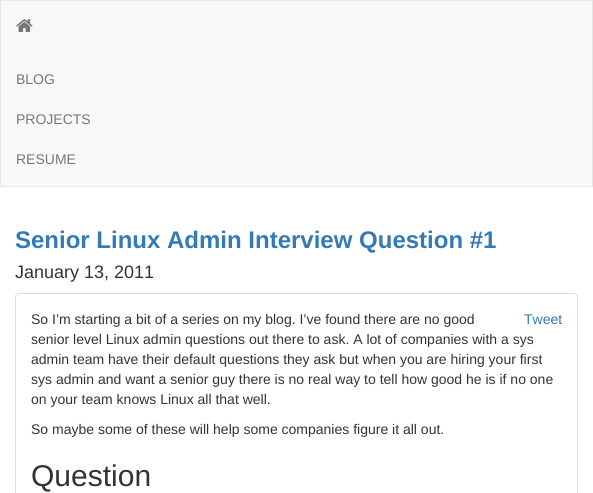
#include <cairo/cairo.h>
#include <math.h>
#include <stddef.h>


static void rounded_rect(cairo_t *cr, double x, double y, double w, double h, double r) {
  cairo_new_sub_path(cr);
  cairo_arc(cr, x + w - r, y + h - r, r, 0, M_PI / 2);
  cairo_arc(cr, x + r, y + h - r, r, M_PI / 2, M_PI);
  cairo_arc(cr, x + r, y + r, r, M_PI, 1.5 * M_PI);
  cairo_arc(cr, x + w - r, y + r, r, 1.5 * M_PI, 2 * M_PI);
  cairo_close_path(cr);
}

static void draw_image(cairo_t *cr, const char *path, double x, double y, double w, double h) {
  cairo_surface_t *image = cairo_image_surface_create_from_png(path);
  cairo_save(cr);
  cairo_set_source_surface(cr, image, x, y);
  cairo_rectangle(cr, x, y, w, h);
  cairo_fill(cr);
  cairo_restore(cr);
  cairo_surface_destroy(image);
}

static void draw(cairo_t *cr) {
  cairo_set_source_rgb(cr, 1, 1, 1);
  cairo_paint(cr);
  cairo_set_source_rgb(cr, 248 / 255.0, 248 / 255.0, 248 / 255.0);
  cairo_rectangle(cr, 0.5, 0.5, 592, 186);
  cairo_fill_preserve(cr);
  cairo_set_source_rgb(cr, 231 / 255.0, 231 / 255.0, 231 / 255.0);
  cairo_set_line_width(cr, 1);
  cairo_stroke(cr);
  draw_image(cr, "images/1.png", 16, 19, 17, 13);
  rounded_rect(cr, 15.5, 293.5, 562, 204, 3.5);
  cairo_set_source_rgb(cr, 221 / 255.0, 221 / 255.0, 221 / 255.0);
  cairo_stroke(cr);
  cairo_select_font_face(cr, "Liberation Sans", CAIRO_FONT_SLANT_NORMAL, CAIRO_FONT_WEIGHT_NORMAL);
  cairo_set_font_size(cr, 14);
  cairo_set_source_rgb(cr, 119 / 255.0, 119 / 255.0, 119 / 255.0);
  cairo_move_to(cr, 16, 84);
  cairo_show_text(cr, "BLOG");
  cairo_move_to(cr, 16, 124);
  cairo_show_text(cr, "PROJECTS");
  cairo_move_to(cr, 16, 164);
  cairo_show_text(cr, "RESUME");
  cairo_select_font_face(cr, "Liberation Sans", CAIRO_FONT_SLANT_NORMAL, CAIRO_FONT_WEIGHT_BOLD);
  cairo_set_font_size(cr, 24);
  cairo_set_source_rgb(cr, 51 / 255.0, 122 / 255.0, 183 / 255.0);
  cairo_move_to(cr, 15, 248);
  cairo_show_text(cr, "Senior Linux Admin Interview Question #1");
  cairo_select_font_face(cr, "Liberation Sans", CAIRO_FONT_SLANT_NORMAL, CAIRO_FONT_WEIGHT_NORMAL);
  cairo_set_font_size(cr, 18);
  cairo_set_source_rgb(cr, 51 / 255.0, 51 / 255.0, 51 / 255.0);
  cairo_move_to(cr, 15, 278);
  cairo_show_text(cr, "January 13, 2011");
  cairo_set_font_size(cr, 14);
  cairo_move_to(cr, 31, 324);
  cairo_show_text(cr, "So I’m starting a bit of a series on my blog. I’ve found there are no good");
  cairo_move_to(cr, 31, 344);
  cairo_show_text(cr, "senior level Linux admin questions out there to ask. A lot of companies with a sys");
  cairo_move_to(cr, 31, 364);
  cairo_show_text(cr, "admin team have their default questions they ask but when you are hiring your first");
  cairo_move_to(cr, 31, 384);
  cairo_show_text(cr, "sys admin and want a senior guy there is no real way to tell how good he is if no one");
  cairo_move_to(cr, 31, 404);
  cairo_show_text(cr, "on your team knows Linux all that well.");
  cairo_set_source_rgb(cr, 51 / 255.0, 122 / 255.0, 183 / 255.0);
  cairo_move_to(cr, 524, 324);
  cairo_show_text(cr, "Tweet");
  cairo_set_source_rgb(cr, 51 / 255.0, 51 / 255.0, 51 / 255.0);
  cairo_move_to(cr, 31, 434);
  cairo_show_text(cr, "So maybe some of these will help some companies figure it all out.");
  cairo_set_font_size(cr, 30);
  cairo_move_to(cr, 31, 486);
  cairo_show_text(cr, "Question");
}

int main(void) {
  cairo_surface_t *surface = cairo_image_surface_create(CAIRO_FORMAT_RGB24, 593, 493);
  cairo_t *cr = cairo_create(surface);
  cairo_font_options_t *options = cairo_font_options_create();
  cairo_font_options_set_hint_metrics(options, CAIRO_HINT_METRICS_OFF);
  cairo_font_options_set_hint_style(options, CAIRO_HINT_STYLE_NONE);
  cairo_set_font_options(cr, options);
  cairo_set_miter_limit(cr, 4);
  draw(cr);
  cairo_surface_write_to_png(surface, "out.png");
  cairo_font_options_destroy(options);
  cairo_destroy(cr);
  cairo_surface_destroy(surface);
  return 0;
}
